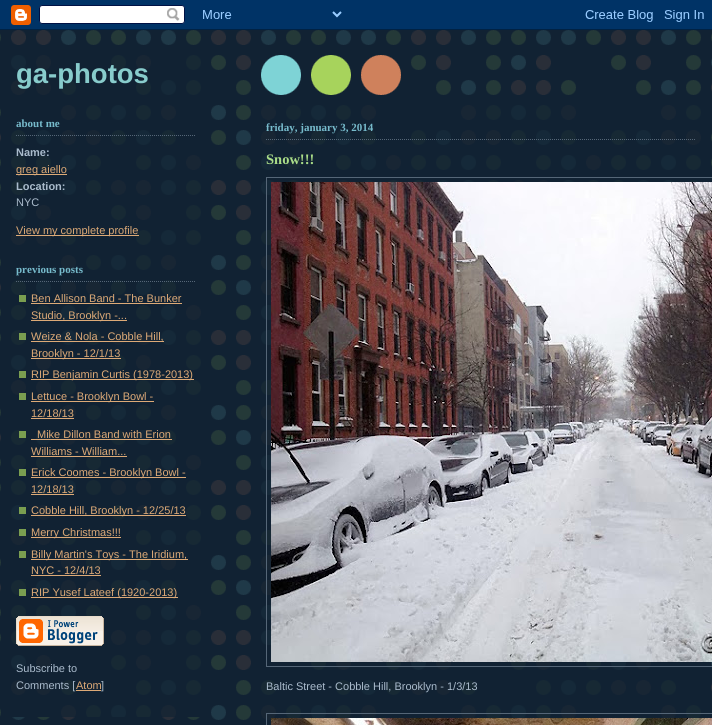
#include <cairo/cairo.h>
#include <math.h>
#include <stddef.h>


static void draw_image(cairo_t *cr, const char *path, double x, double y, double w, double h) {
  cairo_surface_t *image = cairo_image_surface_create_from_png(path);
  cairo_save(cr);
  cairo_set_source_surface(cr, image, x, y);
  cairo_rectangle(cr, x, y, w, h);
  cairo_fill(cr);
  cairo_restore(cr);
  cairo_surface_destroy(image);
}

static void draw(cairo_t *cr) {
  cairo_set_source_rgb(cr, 17 / 255.0, 34 / 255.0, 51 / 255.0);
  cairo_paint(cr);
  draw_image(cr, "images/1.png", 0, 30, 712, 690);
  draw_image(cr, "images/2.png", 0, 0, 712, 30);
  draw_image(cr, "images/3.png", 261, 55, 140, 40);
  draw_image(cr, "images/4.png", 11, 55, 190, 662);
  cairo_new_path(cr);
  cairo_move_to(cr, 16, 135.5);
  cairo_line_to(cr, 196, 135.5);
  cairo_set_source_rgb(cr, 85 / 255.0, 102 / 255.0, 119 / 255.0);
  cairo_set_line_width(cr, 1);
  cairo_set_dash(cr, (double[]){1, 1}, 2, 0);
  cairo_stroke(cr);
  cairo_set_source_rgb(cr, 221 / 255.0, 170 / 255.0, 119 / 255.0);
  cairo_rectangle(cr, 16, 174, 51, 1);
  cairo_fill(cr);
  cairo_rectangle(cr, 16, 235, 123, 1);
  cairo_fill(cr);
  cairo_new_path(cr);
  cairo_move_to(cr, 16, 281.5);
  cairo_line_to(cr, 196, 281.5);
  cairo_set_source_rgb(cr, 85 / 255.0, 102 / 255.0, 119 / 255.0);
  cairo_stroke(cr);
  cairo_set_source_rgb(cr, 122 / 255.0, 158 / 255.0, 80 / 255.0);
  cairo_rectangle(cr, 19, 295, 7, 7);
  cairo_fill(cr);
  cairo_set_source_rgb(cr, 221 / 255.0, 170 / 255.0, 119 / 255.0);
  cairo_rectangle(cr, 31, 303, 151, 1);
  cairo_fill(cr);
  cairo_rectangle(cr, 31, 320, 96, 1);
  cairo_fill(cr);
  cairo_set_source_rgb(cr, 122 / 255.0, 158 / 255.0, 80 / 255.0);
  cairo_rectangle(cr, 19, 333, 7, 7);
  cairo_fill(cr);
  cairo_set_source_rgb(cr, 221 / 255.0, 170 / 255.0, 119 / 255.0);
  cairo_rectangle(cr, 31, 341, 133, 1);
  cairo_fill(cr);
  cairo_rectangle(cr, 31, 358, 90, 1);
  cairo_fill(cr);
  cairo_set_source_rgb(cr, 122 / 255.0, 158 / 255.0, 80 / 255.0);
  cairo_rectangle(cr, 19, 371, 7, 7);
  cairo_fill(cr);
  cairo_set_source_rgb(cr, 221 / 255.0, 170 / 255.0, 119 / 255.0);
  cairo_rectangle(cr, 31, 379, 163, 1);
  cairo_fill(cr);
  cairo_set_source_rgb(cr, 122 / 255.0, 158 / 255.0, 80 / 255.0);
  cairo_rectangle(cr, 19, 393, 7, 7);
  cairo_fill(cr);
  cairo_set_source_rgb(cr, 221 / 255.0, 170 / 255.0, 119 / 255.0);
  cairo_rectangle(cr, 31, 401, 123, 1);
  cairo_fill(cr);
  cairo_rectangle(cr, 31, 418, 43, 1);
  cairo_fill(cr);
  cairo_set_source_rgb(cr, 122 / 255.0, 158 / 255.0, 80 / 255.0);
  cairo_rectangle(cr, 19, 431, 7, 7);
  cairo_fill(cr);
  cairo_set_source_rgb(cr, 221 / 255.0, 170 / 255.0, 119 / 255.0);
  cairo_rectangle(cr, 31, 439, 141, 1);
  cairo_fill(cr);
  cairo_rectangle(cr, 31, 456, 96, 1);
  cairo_fill(cr);
  cairo_set_source_rgb(cr, 122 / 255.0, 158 / 255.0, 80 / 255.0);
  cairo_rectangle(cr, 19, 469, 7, 7);
  cairo_fill(cr);
  cairo_set_source_rgb(cr, 221 / 255.0, 170 / 255.0, 119 / 255.0);
  cairo_rectangle(cr, 31, 477, 155, 1);
  cairo_fill(cr);
  cairo_rectangle(cr, 31, 494, 43, 1);
  cairo_fill(cr);
  cairo_set_source_rgb(cr, 122 / 255.0, 158 / 255.0, 80 / 255.0);
  cairo_rectangle(cr, 19, 507, 7, 7);
  cairo_fill(cr);
  cairo_set_source_rgb(cr, 221 / 255.0, 170 / 255.0, 119 / 255.0);
  cairo_rectangle(cr, 31, 515, 155, 1);
  cairo_fill(cr);
  cairo_set_source_rgb(cr, 122 / 255.0, 158 / 255.0, 80 / 255.0);
  cairo_rectangle(cr, 19, 529, 7, 7);
  cairo_fill(cr);
  cairo_set_source_rgb(cr, 221 / 255.0, 170 / 255.0, 119 / 255.0);
  cairo_rectangle(cr, 31, 537, 90, 1);
  cairo_fill(cr);
  cairo_set_source_rgb(cr, 122 / 255.0, 158 / 255.0, 80 / 255.0);
  cairo_rectangle(cr, 19, 551, 7, 7);
  cairo_fill(cr);
  cairo_set_source_rgb(cr, 221 / 255.0, 170 / 255.0, 119 / 255.0);
  cairo_rectangle(cr, 31, 559, 157, 1);
  cairo_fill(cr);
  cairo_rectangle(cr, 31, 575, 70, 1);
  cairo_fill(cr);
  cairo_set_source_rgb(cr, 122 / 255.0, 158 / 255.0, 80 / 255.0);
  cairo_rectangle(cr, 19, 589, 7, 7);
  cairo_fill(cr);
  cairo_set_source_rgb(cr, 221 / 255.0, 170 / 255.0, 119 / 255.0);
  cairo_rectangle(cr, 31, 597, 147, 1);
  cairo_fill(cr);
  draw_image(cr, "images/5.png", 16, 616, 88, 30);
  cairo_rectangle(cr, 76, 690, 25, 1);
  cairo_fill(cr);
  draw_image(cr, "images/6.png", 261, 105, 440, 615);
  cairo_new_path(cr);
  cairo_move_to(cr, 266, 139.5);
  cairo_line_to(cr, 696, 139.5);
  cairo_set_source_rgb(cr, 85 / 255.0, 102 / 255.0, 119 / 255.0);
  cairo_stroke(cr);
  cairo_rectangle(cr, 266.5, 177.5, 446, 489);
  cairo_set_dash(cr, NULL, 0, 0);
  cairo_stroke(cr);
  draw_image(cr, "images/7.png", 271, 182, 441, 480);
  cairo_rectangle(cr, 266.5, 713.5, 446, 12);
  cairo_stroke(cr);
  draw_image(cr, "images/8.png", 271, 718, 441, 7);
  cairo_select_font_face(cr, "Liberation Sans", CAIRO_FONT_SLANT_NORMAL, CAIRO_FONT_WEIGHT_BOLD);
  cairo_set_font_size(cr, 27.5);
  cairo_set_source_rgb(cr, 136 / 255.0, 204 / 255.0, 204 / 255.0);
  cairo_move_to(cr, 16, 83);
  cairo_show_text(cr, "ga-photos");
  cairo_select_font_face(cr, "Liberation Serif", CAIRO_FONT_SLANT_NORMAL, CAIRO_FONT_WEIGHT_BOLD);
  cairo_set_font_size(cr, 11);
  cairo_set_source_rgb(cr, 119 / 255.0, 187 / 255.0, 204 / 255.0);
  cairo_move_to(cr, 16, 127);
  cairo_show_text(cr, "about me");
  cairo_select_font_face(cr, "Liberation Sans", CAIRO_FONT_SLANT_NORMAL, CAIRO_FONT_WEIGHT_BOLD);
  cairo_set_source_rgb(cr, 170 / 255.0, 187 / 255.0, 204 / 255.0);
  cairo_move_to(cr, 16, 156);
  cairo_show_text(cr, "Name:");
  cairo_select_font_face(cr, "Liberation Sans", CAIRO_FONT_SLANT_NORMAL, CAIRO_FONT_WEIGHT_NORMAL);
  cairo_set_source_rgb(cr, 221 / 255.0, 170 / 255.0, 119 / 255.0);
  cairo_move_to(cr, 16, 173);
  cairo_show_text(cr, "greg aiello");
  cairo_select_font_face(cr, "Liberation Sans", CAIRO_FONT_SLANT_NORMAL, CAIRO_FONT_WEIGHT_BOLD);
  cairo_set_source_rgb(cr, 170 / 255.0, 187 / 255.0, 204 / 255.0);
  cairo_move_to(cr, 16, 190);
  cairo_show_text(cr, "Location:");
  cairo_select_font_face(cr, "Liberation Sans", CAIRO_FONT_SLANT_NORMAL, CAIRO_FONT_WEIGHT_NORMAL);
  cairo_move_to(cr, 16, 206);
  cairo_show_text(cr, "NYC");
  cairo_set_source_rgb(cr, 221 / 255.0, 170 / 255.0, 119 / 255.0);
  cairo_move_to(cr, 16, 234);
  cairo_show_text(cr, "View my complete profile");
  cairo_select_font_face(cr, "Liberation Serif", CAIRO_FONT_SLANT_NORMAL, CAIRO_FONT_WEIGHT_BOLD);
  cairo_set_source_rgb(cr, 119 / 255.0, 187 / 255.0, 204 / 255.0);
  cairo_move_to(cr, 16, 273);
  cairo_show_text(cr, "previous posts");
  cairo_select_font_face(cr, "Liberation Sans", CAIRO_FONT_SLANT_NORMAL, CAIRO_FONT_WEIGHT_NORMAL);
  cairo_set_source_rgb(cr, 221 / 255.0, 170 / 255.0, 119 / 255.0);
  cairo_move_to(cr, 31, 302);
  cairo_show_text(cr, "Ben Allison Band - The Bunker");
  cairo_move_to(cr, 31, 319);
  cairo_show_text(cr, "Studio, Brooklyn -...");
  cairo_move_to(cr, 31, 340);
  cairo_show_text(cr, "Weize & Nola - Cobble Hill,");
  cairo_move_to(cr, 31, 357);
  cairo_show_text(cr, "Brooklyn - 12/1/13");
  cairo_move_to(cr, 31, 378);
  cairo_show_text(cr, "RIP Benjamin Curtis (1978-2013)");
  cairo_move_to(cr, 31, 400);
  cairo_show_text(cr, "Lettuce - Brooklyn Bowl -");
  cairo_move_to(cr, 31, 417);
  cairo_show_text(cr, "12/18/13");
  cairo_move_to(cr, 37, 438);
  cairo_show_text(cr, "Mike Dillon Band with Erion");
  cairo_move_to(cr, 31, 455);
  cairo_show_text(cr, "Williams - William...");
  cairo_move_to(cr, 31, 476);
  cairo_show_text(cr, "Erick Coomes - Brooklyn Bowl -");
  cairo_move_to(cr, 31, 493);
  cairo_show_text(cr, "12/18/13");
  cairo_move_to(cr, 31, 514);
  cairo_show_text(cr, "Cobble Hill, Brooklyn - 12/25/13");
  cairo_move_to(cr, 31, 536);
  cairo_show_text(cr, "Merry Christmas!!!");
  cairo_move_to(cr, 31, 558);
  cairo_show_text(cr, "Billy Martin's Toys - The Iridium,");
  cairo_move_to(cr, 31, 574);
  cairo_show_text(cr, "NYC - 12/4/13");
  cairo_move_to(cr, 31, 596);
  cairo_show_text(cr, "RIP Yusef Lateef (1920-2013)");
  cairo_set_source_rgb(cr, 170 / 255.0, 187 / 255.0, 204 / 255.0);
  cairo_move_to(cr, 16, 672);
  cairo_show_text(cr, "Subscribe to");
  cairo_move_to(cr, 16, 689);
  cairo_show_text(cr, "Comments [");
  cairo_set_source_rgb(cr, 221 / 255.0, 170 / 255.0, 119 / 255.0);
  cairo_move_to(cr, 76, 689);
  cairo_show_text(cr, "Atom");
  cairo_set_source_rgb(cr, 170 / 255.0, 187 / 255.0, 204 / 255.0);
  cairo_move_to(cr, 101, 689);
  cairo_show_text(cr, "]");
  cairo_select_font_face(cr, "Liberation Serif", CAIRO_FONT_SLANT_NORMAL, CAIRO_FONT_WEIGHT_BOLD);
  cairo_set_source_rgb(cr, 119 / 255.0, 187 / 255.0, 204 / 255.0);
  cairo_move_to(cr, 266, 131);
  cairo_show_text(cr, "friday, january 3, 2014");
  cairo_set_font_size(cr, 14.5);
  cairo_set_source_rgb(cr, 170 / 255.0, 221 / 255.0, 136 / 255.0);
  cairo_move_to(cr, 266, 164);
  cairo_show_text(cr, "Snow!!!");
  cairo_select_font_face(cr, "Liberation Sans", CAIRO_FONT_SLANT_NORMAL, CAIRO_FONT_WEIGHT_NORMAL);
  cairo_set_font_size(cr, 11);
  cairo_set_source_rgb(cr, 170 / 255.0, 187 / 255.0, 204 / 255.0);
  cairo_move_to(cr, 266, 690);
  cairo_show_text(cr, "Baltic Street - Cobble Hill, Brooklyn - 1/3/13");
}

int main(void) {
  cairo_surface_t *surface = cairo_image_surface_create(CAIRO_FORMAT_RGB24, 712, 725);
  cairo_t *cr = cairo_create(surface);
  cairo_font_options_t *options = cairo_font_options_create();
  cairo_font_options_set_hint_metrics(options, CAIRO_HINT_METRICS_OFF);
  cairo_font_options_set_hint_style(options, CAIRO_HINT_STYLE_NONE);
  cairo_set_font_options(cr, options);
  cairo_set_miter_limit(cr, 4);
  draw(cr);
  cairo_surface_write_to_png(surface, "out.png");
  cairo_font_options_destroy(options);
  cairo_destroy(cr);
  cairo_surface_destroy(surface);
  return 0;
}
